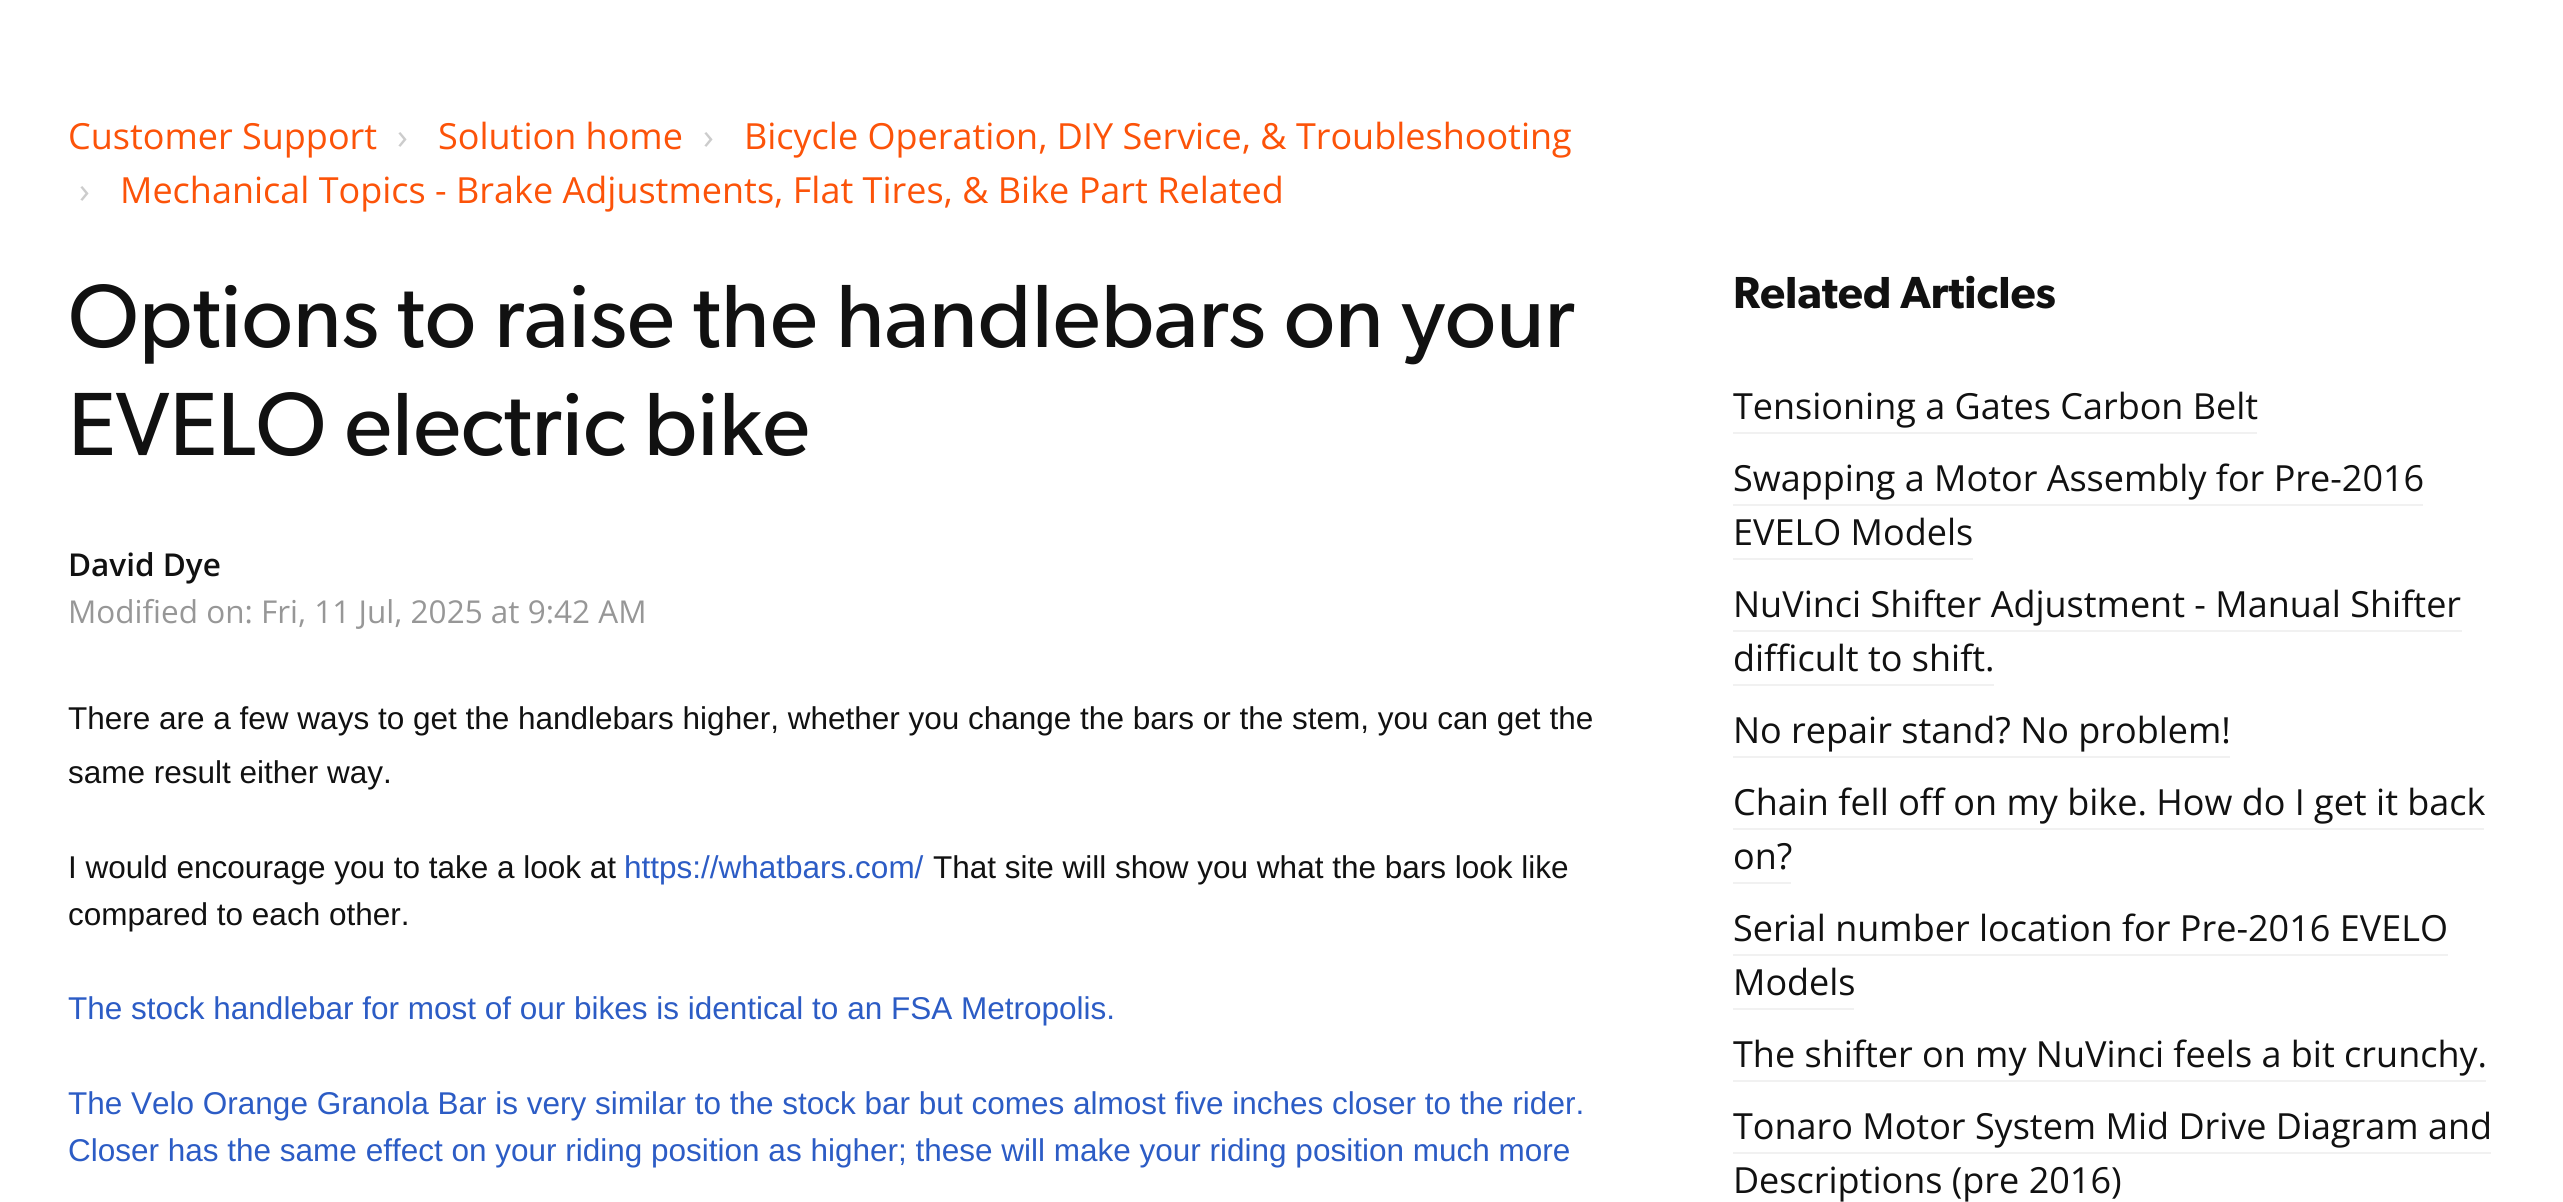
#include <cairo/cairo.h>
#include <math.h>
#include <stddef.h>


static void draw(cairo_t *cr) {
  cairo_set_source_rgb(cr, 1, 1, 1);
  cairo_paint(cr);
  cairo_set_source_rgb(cr, 241 / 255.0, 241 / 255.0, 241 / 255.0);
  cairo_rectangle(cr, 1733, 432, 524, 2);
  cairo_fill(cr);
  cairo_rectangle(cr, 1733, 504, 690, 2);
  cairo_fill(cr);
  cairo_rectangle(cr, 1733, 558, 240, 2);
  cairo_fill(cr);
  cairo_rectangle(cr, 1733, 630, 729, 2);
  cairo_fill(cr);
  cairo_rectangle(cr, 1733, 684, 261, 2);
  cairo_fill(cr);
  cairo_rectangle(cr, 1733, 756, 497, 2);
  cairo_fill(cr);
  cairo_rectangle(cr, 1733, 828, 751, 2);
  cairo_fill(cr);
  cairo_rectangle(cr, 1733, 882, 58, 2);
  cairo_fill(cr);
  cairo_rectangle(cr, 1733, 954, 715, 2);
  cairo_fill(cr);
  cairo_rectangle(cr, 1733, 1008, 121, 2);
  cairo_fill(cr);
  cairo_rectangle(cr, 1733, 1080, 753, 2);
  cairo_fill(cr);
  cairo_rectangle(cr, 1733, 1152, 758, 2);
  cairo_fill(cr);
  cairo_select_font_face(cr, "Open Sans", CAIRO_FONT_SLANT_NORMAL, CAIRO_FONT_WEIGHT_NORMAL);
  cairo_set_font_size(cr, 36);
  cairo_set_source_rgb(cr, 252 / 255.0, 83 / 255.0, 9 / 255.0);
  cairo_move_to(cr, 68, 149);
  cairo_show_text(cr, "Customer Support");
  cairo_set_source_rgb(cr, 204 / 255.0, 204 / 255.0, 204 / 255.0);
  cairo_move_to(cr, 397, 149);
  cairo_show_text(cr, "›");
  cairo_set_source_rgb(cr, 252 / 255.0, 83 / 255.0, 9 / 255.0);
  cairo_move_to(cr, 438, 149);
  cairo_show_text(cr, "Solution home");
  cairo_set_source_rgb(cr, 204 / 255.0, 204 / 255.0, 204 / 255.0);
  cairo_move_to(cr, 703, 149);
  cairo_show_text(cr, "›");
  cairo_set_source_rgb(cr, 252 / 255.0, 83 / 255.0, 9 / 255.0);
  cairo_move_to(cr, 744, 149);
  cairo_show_text(cr, "Bicycle Operation, DIY Service, & Troubleshooting");
  cairo_set_source_rgb(cr, 204 / 255.0, 204 / 255.0, 204 / 255.0);
  cairo_move_to(cr, 79, 203);
  cairo_show_text(cr, "›");
  cairo_set_source_rgb(cr, 252 / 255.0, 83 / 255.0, 9 / 255.0);
  cairo_move_to(cr, 120, 203);
  cairo_show_text(cr, "Mechanical Topics - Brake Adjustments, Flat Tires, & Bike Part Related");
  cairo_select_font_face(cr, "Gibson", CAIRO_FONT_SLANT_NORMAL, CAIRO_FONT_WEIGHT_NORMAL);
  cairo_set_font_size(cr, 90);
  cairo_set_source_rgb(cr, 17 / 255.0, 17 / 255.0, 17 / 255.0);
  cairo_move_to(cr, 68, 347);
  cairo_show_text(cr, "Options to raise the handlebars on your");
  cairo_move_to(cr, 68, 455);
  cairo_show_text(cr, "EVELO electric bike");
  cairo_select_font_face(cr, "Open Sans SemiBold", CAIRO_FONT_SLANT_NORMAL, CAIRO_FONT_WEIGHT_NORMAL);
  cairo_set_font_size(cr, 31.5);
  cairo_move_to(cr, 68, 576);
  cairo_show_text(cr, "David Dye");
  cairo_select_font_face(cr, "Open Sans", CAIRO_FONT_SLANT_NORMAL, CAIRO_FONT_WEIGHT_NORMAL);
  cairo_set_source_rgb(cr, 151 / 255.0, 151 / 255.0, 151 / 255.0);
  cairo_move_to(cr, 68, 623);
  cairo_show_text(cr, "Modified on: Fri, 11 Jul, 2025 at 9:42 AM");
  cairo_select_font_face(cr, "Liberation Sans", CAIRO_FONT_SLANT_NORMAL, CAIRO_FONT_WEIGHT_NORMAL);
  cairo_set_source_rgb(cr, 17 / 255.0, 17 / 255.0, 17 / 255.0);
  cairo_move_to(cr, 68, 729);
  cairo_show_text(cr, "There are a few ways to get the handlebars higher, whether you change the bars or the stem, you can get the");
  cairo_move_to(cr, 68, 783);
  cairo_show_text(cr, "same result either way.");
  cairo_move_to(cr, 68, 878);
  cairo_show_text(cr, "I would encourage you to take a look at");
  cairo_set_source_rgb(cr, 44 / 255.0, 92 / 255.0, 197 / 255.0);
  cairo_move_to(cr, 624, 878);
  cairo_show_text(cr, "https://whatbars.com/");
  cairo_set_source_rgb(cr, 17 / 255.0, 17 / 255.0, 17 / 255.0);
  cairo_move_to(cr, 933, 878);
  cairo_show_text(cr, "That site will show you what the bars look like");
  cairo_move_to(cr, 68, 925);
  cairo_show_text(cr, "compared to each other.");
  cairo_set_source_rgb(cr, 44 / 255.0, 92 / 255.0, 197 / 255.0);
  cairo_move_to(cr, 68, 1019);
  cairo_show_text(cr, "The stock handlebar for most of our bikes is identical to an FSA Metropolis.");
  cairo_move_to(cr, 68, 1114);
  cairo_show_text(cr, "The Velo Orange Granola Bar is very similar to the stock bar but comes almost five inches closer to the rider.");
  cairo_move_to(cr, 68, 1161);
  cairo_show_text(cr, "Closer has the same effect on your riding position as higher; these will make your riding position much more");
  cairo_select_font_face(cr, "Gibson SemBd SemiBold", CAIRO_FONT_SLANT_NORMAL, CAIRO_FONT_WEIGHT_NORMAL);
  cairo_set_font_size(cr, 45);
  cairo_set_source_rgb(cr, 17 / 255.0, 17 / 255.0, 17 / 255.0);
  cairo_move_to(cr, 1733, 308);
  cairo_show_text(cr, "Related Articles");
  cairo_select_font_face(cr, "Open Sans", CAIRO_FONT_SLANT_NORMAL, CAIRO_FONT_WEIGHT_NORMAL);
  cairo_set_font_size(cr, 36);
  cairo_move_to(cr, 1733, 419);
  cairo_show_text(cr, "Tensioning a Gates Carbon Belt");
  cairo_move_to(cr, 1733, 491);
  cairo_show_text(cr, "Swapping a Motor Assembly for Pre-2016");
  cairo_move_to(cr, 1733, 545);
  cairo_show_text(cr, "EVELO Models");
  cairo_move_to(cr, 1733, 617);
  cairo_show_text(cr, "NuVinci Shifter Adjustment - Manual Shifter");
  cairo_move_to(cr, 1733, 671);
  cairo_show_text(cr, "difficult to shift.");
  cairo_move_to(cr, 1733, 743);
  cairo_show_text(cr, "No repair stand? No problem!");
  cairo_move_to(cr, 1733, 815);
  cairo_show_text(cr, "Chain fell off on my bike. How do I get it back");
  cairo_move_to(cr, 1733, 869);
  cairo_show_text(cr, "on?");
  cairo_move_to(cr, 1733, 941);
  cairo_show_text(cr, "Serial number location for Pre-2016 EVELO");
  cairo_move_to(cr, 1733, 995);
  cairo_show_text(cr, "Models");
  cairo_move_to(cr, 1733, 1067);
  cairo_show_text(cr, "The shifter on my NuVinci feels a bit crunchy.");
  cairo_move_to(cr, 1733, 1139);
  cairo_show_text(cr, "Tonaro Motor System Mid Drive Diagram and");
  cairo_move_to(cr, 1733, 1193);
  cairo_show_text(cr, "Descriptions (pre 2016)");
}

int main(void) {
  cairo_surface_t *surface = cairo_image_surface_create(CAIRO_FORMAT_RGB24, 2563, 1202);
  cairo_t *cr = cairo_create(surface);
  cairo_font_options_t *options = cairo_font_options_create();
  cairo_font_options_set_hint_metrics(options, CAIRO_HINT_METRICS_OFF);
  cairo_font_options_set_hint_style(options, CAIRO_HINT_STYLE_NONE);
  cairo_set_font_options(cr, options);
  cairo_set_miter_limit(cr, 4);
  draw(cr);
  cairo_surface_write_to_png(surface, "out.png");
  cairo_font_options_destroy(options);
  cairo_destroy(cr);
  cairo_surface_destroy(surface);
  return 0;
}
